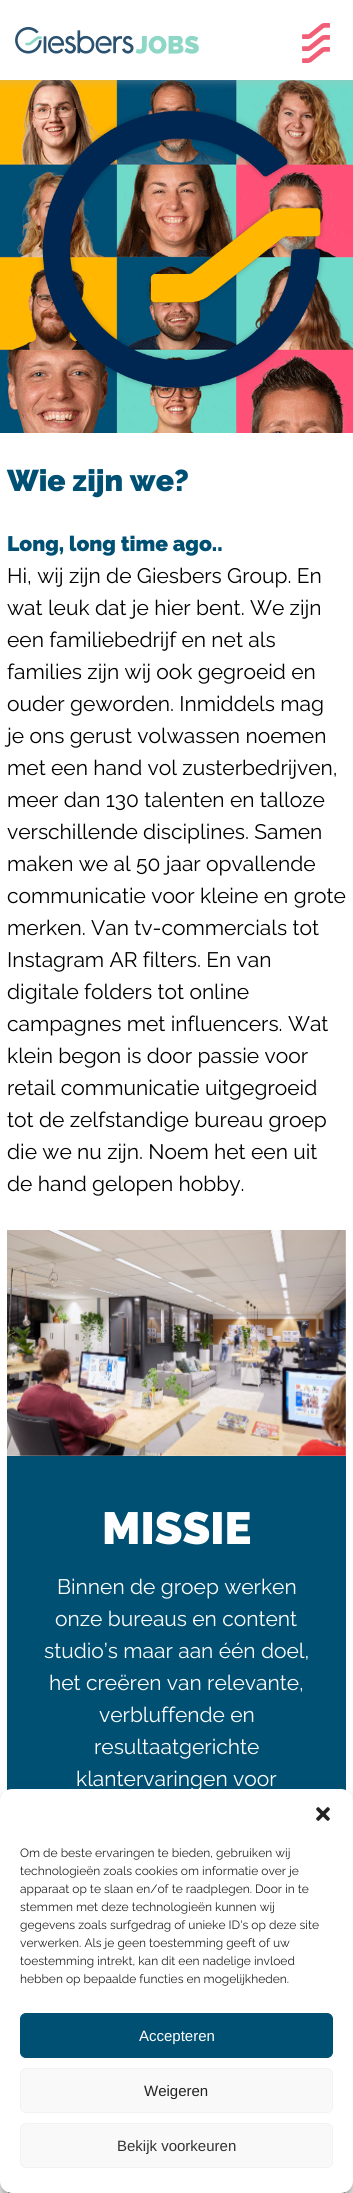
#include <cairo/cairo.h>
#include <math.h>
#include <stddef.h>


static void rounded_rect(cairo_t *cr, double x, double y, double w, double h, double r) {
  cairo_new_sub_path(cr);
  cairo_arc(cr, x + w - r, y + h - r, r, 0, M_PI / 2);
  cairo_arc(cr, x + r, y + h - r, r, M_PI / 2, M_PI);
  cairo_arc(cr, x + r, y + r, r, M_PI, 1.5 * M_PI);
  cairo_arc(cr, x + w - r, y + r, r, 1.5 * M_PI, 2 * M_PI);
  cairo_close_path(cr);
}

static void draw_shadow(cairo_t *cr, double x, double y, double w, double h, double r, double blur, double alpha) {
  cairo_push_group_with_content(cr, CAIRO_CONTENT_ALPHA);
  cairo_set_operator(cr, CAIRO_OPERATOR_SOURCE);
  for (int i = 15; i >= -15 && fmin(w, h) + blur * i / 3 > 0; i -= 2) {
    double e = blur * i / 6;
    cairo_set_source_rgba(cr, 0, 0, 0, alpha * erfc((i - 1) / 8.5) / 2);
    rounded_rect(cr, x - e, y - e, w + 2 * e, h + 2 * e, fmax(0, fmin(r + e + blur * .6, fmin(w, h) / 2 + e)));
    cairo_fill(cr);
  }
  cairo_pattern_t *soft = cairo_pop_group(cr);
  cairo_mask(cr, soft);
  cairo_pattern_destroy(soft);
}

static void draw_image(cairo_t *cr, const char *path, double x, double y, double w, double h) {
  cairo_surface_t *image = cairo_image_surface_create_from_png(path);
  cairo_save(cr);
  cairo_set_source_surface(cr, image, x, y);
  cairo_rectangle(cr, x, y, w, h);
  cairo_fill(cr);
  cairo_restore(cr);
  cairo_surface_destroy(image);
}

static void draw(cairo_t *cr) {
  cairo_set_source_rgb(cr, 1, 1, 1);
  cairo_paint(cr);
  draw_image(cr, "images/3.png", 0, 80, 353, 353);
  cairo_save(cr);
  cairo_rectangle(cr, 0, 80, 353, 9);
  cairo_clip(cr);
  cairo_set_source_rgb(cr, 186 / 255.0, 186 / 255.0, 186 / 255.0);
  draw_shadow(cr, 0, 0, 353, 80, 0, 5, 0.5);
  cairo_restore(cr);
  draw_image(cr, "images/1.png", 15, 27, 184, 27);
  draw_image(cr, "images/2.png", 302, 23, 28, 40);
  draw_image(cr, "images/4.png", 7, 1230, 339, 226);
  cairo_set_source_rgb(cr, 0, 80 / 255.0, 116 / 255.0);
  cairo_rectangle(cr, 7, 1456, 339, 737);
  cairo_fill(cr);
  cairo_set_source_rgb(cr, 1, 1, 1);
  cairo_rectangle(cr, 345, 2191, 1, 2);
  cairo_fill(cr);
  cairo_rectangle(cr, 7, 2191, 1, 2);
  cairo_fill(cr);
  cairo_set_source_rgb(cr, 0, 0, 0);
  draw_shadow(cr, 0, 1795, 353, 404, 12, 3, 0.23);
  draw_shadow(cr, 0, 1799, 353, 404, 12, 10, 0.19);
  cairo_set_source_rgb(cr, 1, 1, 1);
  rounded_rect(cr, 0, 1789, 353, 404, 12);
  cairo_fill(cr);
  draw_image(cr, "images/5.png", 316, 1807, 14, 14);
  cairo_set_source_rgb(cr, 0, 80 / 255.0, 116 / 255.0);
  rounded_rect(cr, 20.5, 2013.5, 312, 44, 5.5);
  cairo_fill_preserve(cr);
  cairo_set_line_width(cr, 1);
  cairo_stroke(cr);
  cairo_set_source_rgb(cr, 249 / 255.0, 249 / 255.0, 249 / 255.0);
  rounded_rect(cr, 20.5, 2068.5, 312, 44, 5.5);
  cairo_fill_preserve(cr);
  cairo_set_source_rgb(cr, 242 / 255.0, 242 / 255.0, 242 / 255.0);
  cairo_stroke(cr);
  cairo_set_source_rgb(cr, 249 / 255.0, 249 / 255.0, 249 / 255.0);
  rounded_rect(cr, 20.5, 2123.5, 312, 44, 5.5);
  cairo_fill_preserve(cr);
  cairo_set_source_rgb(cr, 242 / 255.0, 242 / 255.0, 242 / 255.0);
  cairo_stroke(cr);
  cairo_select_font_face(cr, "Raleway Black", CAIRO_FONT_SLANT_NORMAL, CAIRO_FONT_WEIGHT_NORMAL);
  cairo_set_font_size(cr, 30);
  cairo_set_source_rgb(cr, 0, 80 / 255.0, 116 / 255.0);
  cairo_move_to(cr, 7, 491);
  cairo_show_text(cr, "Wie zijn we?");
  cairo_set_font_size(cr, 21);
  cairo_move_to(cr, 7, 551);
  cairo_show_text(cr, "Long, long time ago..");
  cairo_select_font_face(cr, "Raleway", CAIRO_FONT_SLANT_NORMAL, CAIRO_FONT_WEIGHT_NORMAL);
  cairo_set_source_rgb(cr, 0, 0, 0);
  cairo_move_to(cr, 7, 583);
  cairo_show_text(cr, "Hi, wij zijn de Giesbers Group. En");
  cairo_move_to(cr, 7, 615);
  cairo_show_text(cr, "wat leuk dat je hier bent. We zijn");
  cairo_move_to(cr, 7, 647);
  cairo_show_text(cr, "een familiebedrijf en net als");
  cairo_move_to(cr, 7, 679);
  cairo_show_text(cr, "families zijn wij ook gegroeid en");
  cairo_move_to(cr, 7, 711);
  cairo_show_text(cr, "ouder geworden. Inmiddels mag");
  cairo_move_to(cr, 7, 743);
  cairo_show_text(cr, "je ons gerust volwassen noemen");
  cairo_move_to(cr, 7, 775);
  cairo_show_text(cr, "met een hand vol zusterbedrijven,");
  cairo_move_to(cr, 7, 807);
  cairo_show_text(cr, "meer dan 130 talenten en talloze");
  cairo_move_to(cr, 7, 839);
  cairo_show_text(cr, "verschillende disciplines. Samen");
  cairo_move_to(cr, 7, 871);
  cairo_show_text(cr, "maken we al 50 jaar opvallende");
  cairo_move_to(cr, 7, 903);
  cairo_show_text(cr, "communicatie voor kleine en grote");
  cairo_move_to(cr, 7, 935);
  cairo_show_text(cr, "merken. Van tv-commercials tot");
  cairo_move_to(cr, 7, 967);
  cairo_show_text(cr, "Instagram AR filters. En van");
  cairo_move_to(cr, 7, 999);
  cairo_show_text(cr, "digitale folders tot online");
  cairo_move_to(cr, 7, 1031);
  cairo_show_text(cr, "campagnes met influencers. Wat");
  cairo_move_to(cr, 7, 1063);
  cairo_show_text(cr, "klein begon is door passie voor");
  cairo_move_to(cr, 7, 1095);
  cairo_show_text(cr, "retail communicatie uitgegroeid");
  cairo_move_to(cr, 7, 1127);
  cairo_show_text(cr, "tot de zelfstandige bureau groep");
  cairo_move_to(cr, 7, 1159);
  cairo_show_text(cr, "die we nu zijn. Noem het een uit");
  cairo_move_to(cr, 7, 1191);
  cairo_show_text(cr, "de hand gelopen hobby.");
  cairo_select_font_face(cr, "Raleway Black", CAIRO_FONT_SLANT_NORMAL, CAIRO_FONT_WEIGHT_NORMAL);
  cairo_set_font_size(cr, 45);
  cairo_set_source_rgb(cr, 1, 1, 1);
  cairo_move_to(cr, 102, 1544);
  cairo_show_text(cr, "MISSIE");
  cairo_select_font_face(cr, "Raleway", CAIRO_FONT_SLANT_NORMAL, CAIRO_FONT_WEIGHT_NORMAL);
  cairo_set_font_size(cr, 21);
  cairo_move_to(cr, 57, 1594);
  cairo_show_text(cr, "Binnen de groep werken");
  cairo_move_to(cr, 55, 1626);
  cairo_show_text(cr, "onze bureaus en content");
  cairo_move_to(cr, 44, 1658);
  cairo_show_text(cr, "studio’s maar aan één doel,");
  cairo_move_to(cr, 49, 1690);
  cairo_show_text(cr, "het creëren van relevante,");
  cairo_move_to(cr, 99, 1722);
  cairo_show_text(cr, "verbluffende en");
  cairo_move_to(cr, 94, 1754);
  cairo_show_text(cr, "resultaatgerichte");
  cairo_move_to(cr, 76, 1786);
  cairo_show_text(cr, "klantervaringen voor");
  cairo_set_font_size(cr, 12);
  cairo_set_source_rgb(cr, 34 / 255.0, 34 / 255.0, 34 / 255.0);
  cairo_move_to(cr, 20, 1857);
  cairo_show_text(cr, "Om de beste ervaringen te bieden, gebruiken wij");
  cairo_move_to(cr, 20, 1875);
  cairo_show_text(cr, "technologieën zoals cookies om informatie over je");
  cairo_move_to(cr, 20, 1893);
  cairo_show_text(cr, "apparaat op te slaan en/of te raadplegen. Door in te");
  cairo_move_to(cr, 20, 1911);
  cairo_show_text(cr, "stemmen met deze technologieën kunnen wij");
  cairo_move_to(cr, 20, 1929);
  cairo_show_text(cr, "gegevens zoals surfgedrag of unieke ID's op deze site");
  cairo_move_to(cr, 20, 1947);
  cairo_show_text(cr, "verwerken. Als je geen toestemming geeft of uw");
  cairo_move_to(cr, 20, 1965);
  cairo_show_text(cr, "toestemming intrekt, kan dit een nadelige invloed");
  cairo_move_to(cr, 20, 1983);
  cairo_show_text(cr, "hebben op bepaalde functies en mogelijkheden.");
  cairo_select_font_face(cr, "Liberation Sans", CAIRO_FONT_SLANT_NORMAL, CAIRO_FONT_WEIGHT_NORMAL);
  cairo_set_font_size(cr, 15);
  cairo_set_source_rgb(cr, 1, 1, 1);
  cairo_move_to(cr, 139, 2041);
  cairo_show_text(cr, "Accepteren");
  cairo_set_source_rgb(cr, 34 / 255.0, 34 / 255.0, 34 / 255.0);
  cairo_move_to(cr, 144, 2096);
  cairo_show_text(cr, "Weigeren");
  cairo_set_source_rgb(cr, 51 / 255.0, 51 / 255.0, 51 / 255.0);
  cairo_move_to(cr, 117, 2151);
  cairo_show_text(cr, "Bekijk voorkeuren");
}

int main(void) {
  cairo_surface_t *surface = cairo_image_surface_create(CAIRO_FORMAT_RGB24, 353, 2193);
  cairo_t *cr = cairo_create(surface);
  cairo_font_options_t *options = cairo_font_options_create();
  cairo_font_options_set_hint_metrics(options, CAIRO_HINT_METRICS_OFF);
  cairo_font_options_set_hint_style(options, CAIRO_HINT_STYLE_NONE);
  cairo_set_font_options(cr, options);
  cairo_set_miter_limit(cr, 4);
  draw(cr);
  cairo_surface_write_to_png(surface, "out.png");
  cairo_font_options_destroy(options);
  cairo_destroy(cr);
  cairo_surface_destroy(surface);
  return 0;
}
